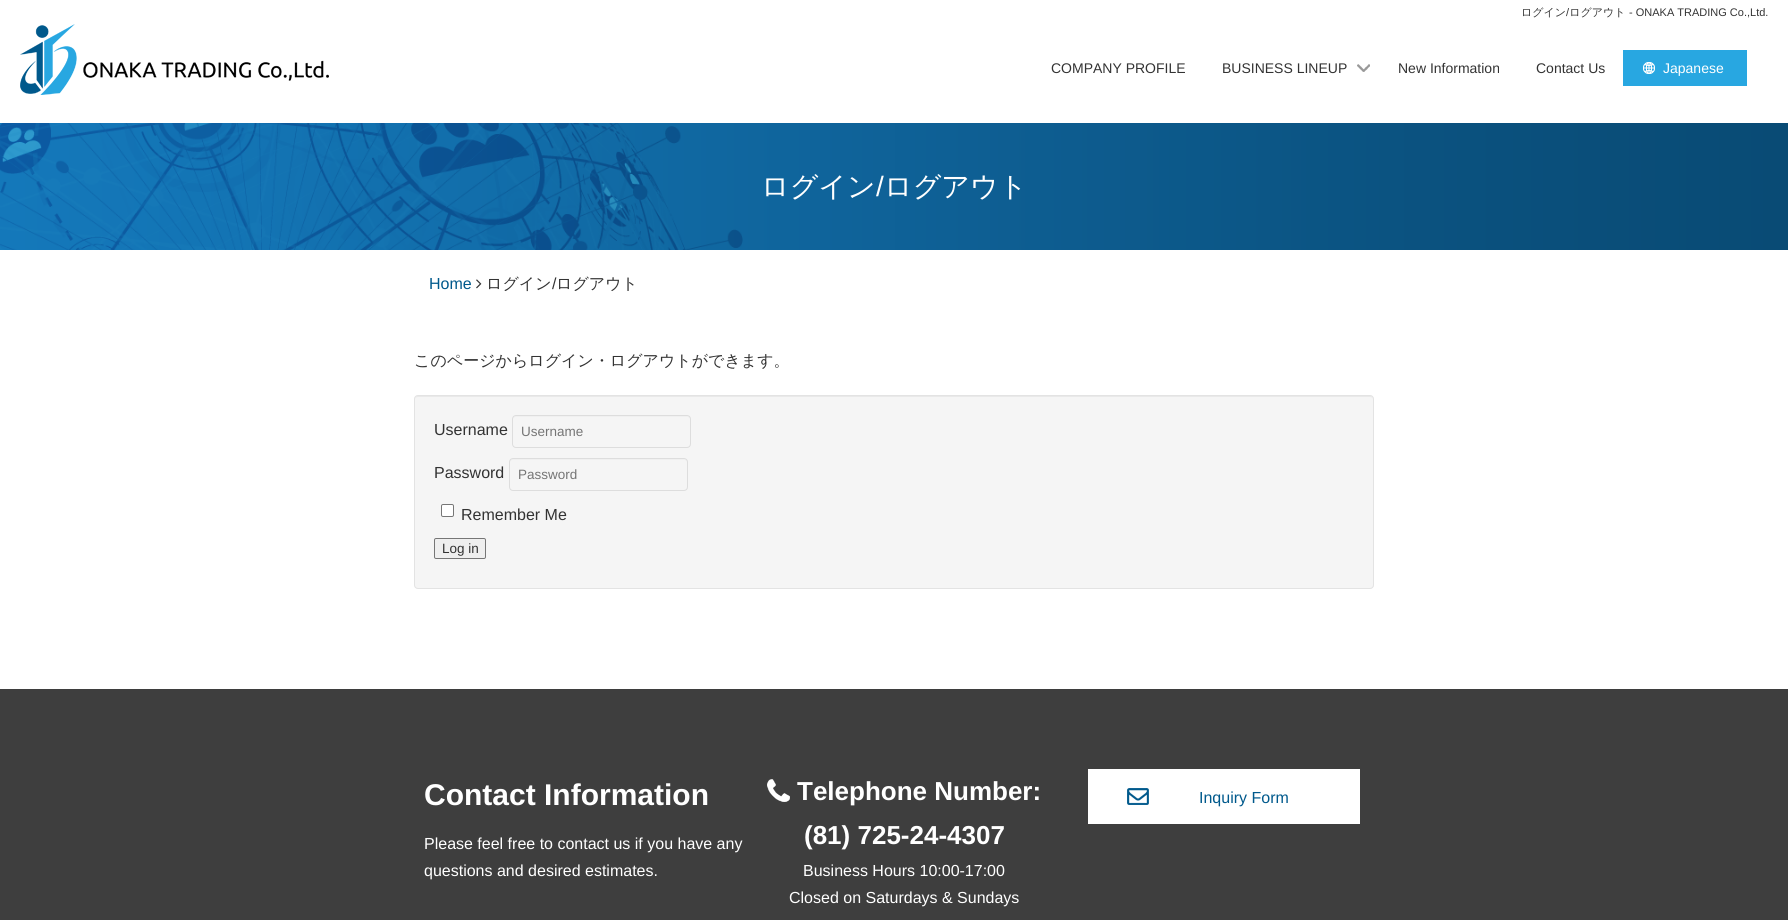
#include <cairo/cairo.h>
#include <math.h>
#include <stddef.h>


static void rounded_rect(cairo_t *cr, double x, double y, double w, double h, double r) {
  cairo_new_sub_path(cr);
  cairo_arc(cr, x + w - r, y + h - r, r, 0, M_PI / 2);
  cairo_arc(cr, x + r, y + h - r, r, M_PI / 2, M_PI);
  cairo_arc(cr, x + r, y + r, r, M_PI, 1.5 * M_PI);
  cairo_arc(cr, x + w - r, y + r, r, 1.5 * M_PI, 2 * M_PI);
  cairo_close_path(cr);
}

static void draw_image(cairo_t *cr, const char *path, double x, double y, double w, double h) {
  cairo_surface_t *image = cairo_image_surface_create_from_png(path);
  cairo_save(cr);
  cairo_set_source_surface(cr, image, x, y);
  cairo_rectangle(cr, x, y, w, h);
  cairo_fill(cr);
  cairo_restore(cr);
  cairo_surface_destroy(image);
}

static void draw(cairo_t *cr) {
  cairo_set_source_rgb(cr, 1, 1, 1);
  cairo_paint(cr);
  draw_image(cr, "images/1.png", 20, 24, 309, 71);
  draw_image(cr, "images/2.png", 1357, 64, 13, 8);
  cairo_set_source_rgb(cr, 40 / 255.0, 167 / 255.0, 225 / 255.0);
  cairo_rectangle(cr, 1623, 50, 124, 36);
  cairo_fill(cr);
  draw_image(cr, "images/3.png", 1643, 62, 12, 12);
  draw_image(cr, "images/4.png", 0, 123, 1788, 127);
  draw_image(cr, "images/5.png", 476, 279, 6, 10);
  cairo_set_source_rgb(cr, 245 / 255.0, 245 / 255.0, 245 / 255.0);
  rounded_rect(cr, 414, 395, 960, 194, 4);
  cairo_fill(cr);
  cairo_set_source_rgb(cr, 233 / 255.0, 233 / 255.0, 233 / 255.0);
  cairo_new_path(cr);
  cairo_move_to(cr, 418, 397);
  cairo_line_to(cr, 1370, 397);
  cairo_curve_to(cr, 1372, 397, 1373, 398, 1373, 400);
  cairo_curve_to(cr, 1373, 398, 1372, 396, 1370, 396);
  cairo_line_to(cr, 418, 396);
  cairo_curve_to(cr, 416, 396, 415, 398, 415, 400);
  cairo_curve_to(cr, 415, 398, 416, 397, 418, 397);
  cairo_close_path(cr);
  cairo_fill(cr);
  rounded_rect(cr, 414.5, 395.5, 959, 193, 3.5);
  cairo_set_source_rgb(cr, 227 / 255.0, 227 / 255.0, 227 / 255.0);
  cairo_set_line_width(cr, 1);
  cairo_stroke(cr);
  cairo_set_source_rgb(cr, 240 / 255.0, 240 / 255.0, 240 / 255.0);
  cairo_new_path(cr);
  cairo_move_to(cr, 516, 417);
  cairo_line_to(cr, 687, 417);
  cairo_curve_to(cr, 689, 417, 690, 418, 690, 420);
  cairo_line_to(cr, 690, 419);
  cairo_curve_to(cr, 690, 417, 689, 416, 687, 416);
  cairo_line_to(cr, 516, 416);
  cairo_curve_to(cr, 514, 416, 513, 417, 513, 419);
  cairo_line_to(cr, 513, 420);
  cairo_curve_to(cr, 513, 418, 514, 417, 516, 417);
  cairo_close_path(cr);
  cairo_fill(cr);
  rounded_rect(cr, 512.5, 415.5, 178, 32, 3.5);
  cairo_set_source_rgb(cr, 221 / 255.0, 221 / 255.0, 221 / 255.0);
  cairo_stroke(cr);
  cairo_set_source_rgb(cr, 240 / 255.0, 240 / 255.0, 240 / 255.0);
  cairo_new_path(cr);
  cairo_move_to(cr, 513, 460);
  cairo_line_to(cr, 684, 460);
  cairo_curve_to(cr, 686, 460, 687, 461, 687, 463);
  cairo_line_to(cr, 687, 462);
  cairo_curve_to(cr, 687, 460, 686, 459, 684, 459);
  cairo_line_to(cr, 513, 459);
  cairo_curve_to(cr, 511, 459, 510, 460, 510, 462);
  cairo_line_to(cr, 510, 463);
  cairo_curve_to(cr, 510, 461, 511, 460, 513, 460);
  cairo_close_path(cr);
  cairo_fill(cr);
  rounded_rect(cr, 509.5, 458.5, 178, 32, 3.5);
  cairo_set_source_rgb(cr, 221 / 255.0, 221 / 255.0, 221 / 255.0);
  cairo_stroke(cr);
  cairo_set_source_rgb(cr, 1, 1, 1);
  rounded_rect(cr, 441.5, 504.5, 12, 12, 1.5);
  cairo_fill_preserve(cr);
  cairo_set_source_rgb(cr, 118 / 255.0, 118 / 255.0, 118 / 255.0);
  cairo_stroke(cr);
  cairo_set_source_rgb(cr, 239 / 255.0, 239 / 255.0, 239 / 255.0);
  rounded_rect(cr, 434.5, 538.5, 51, 20, 1.5);
  cairo_fill_preserve(cr);
  cairo_set_source_rgb(cr, 118 / 255.0, 118 / 255.0, 118 / 255.0);
  cairo_stroke(cr);
  cairo_set_source_rgb(cr, 62 / 255.0, 62 / 255.0, 62 / 255.0);
  cairo_rectangle(cr, 0, 689, 1788, 231);
  cairo_fill(cr);
  draw_image(cr, "images/6.png", 767, 779, 23, 23);
  cairo_set_source_rgb(cr, 1, 1, 1);
  cairo_rectangle(cr, 1088, 769, 272, 55);
  cairo_fill(cr);
  draw_image(cr, "images/7.png", 1127, 788, 22, 17);
  cairo_select_font_face(cr, "WenQuanYi Zen Hei Medium", CAIRO_FONT_SLANT_NORMAL, CAIRO_FONT_WEIGHT_NORMAL);
  cairo_set_font_size(cr, 11);
  cairo_set_source_rgb(cr, 51 / 255.0, 51 / 255.0, 51 / 255.0);
  cairo_move_to(cr, 1521, 16);
  cairo_show_text(cr, "ログイン ログアウト");
  cairo_select_font_face(cr, "Liberation Sans", CAIRO_FONT_SLANT_NORMAL, CAIRO_FONT_WEIGHT_NORMAL);
  cairo_move_to(cr, 1566, 16);
  cairo_show_text(cr, "/");
  cairo_move_to(cr, 1629, 16);
  cairo_show_text(cr, "- ONAKA TRADING Co.,Ltd.");
  cairo_set_font_size(cr, 14);
  cairo_move_to(cr, 1051, 73);
  cairo_show_text(cr, "COMPANY PROFILE");
  cairo_move_to(cr, 1222, 73);
  cairo_show_text(cr, "BUSINESS LINEUP");
  cairo_move_to(cr, 1398, 73);
  cairo_show_text(cr, "New Information");
  cairo_move_to(cr, 1536, 73);
  cairo_show_text(cr, "Contact Us");
  cairo_set_source_rgb(cr, 1, 1, 1);
  cairo_move_to(cr, 1663, 73);
  cairo_show_text(cr, "Japanese");
  cairo_select_font_face(cr, "WenQuanYi Zen Hei Medium", CAIRO_FONT_SLANT_NORMAL, CAIRO_FONT_WEIGHT_NORMAL);
  cairo_set_font_size(cr, 28);
  cairo_move_to(cr, 761, 196);
  cairo_show_text(cr, "ログイン");
  cairo_select_font_face(cr, "Liberation Sans", CAIRO_FONT_SLANT_NORMAL, CAIRO_FONT_WEIGHT_NORMAL);
  cairo_move_to(cr, 876, 196);
  cairo_show_text(cr, "/");
  cairo_select_font_face(cr, "WenQuanYi Zen Hei Medium", CAIRO_FONT_SLANT_NORMAL, CAIRO_FONT_WEIGHT_NORMAL);
  cairo_move_to(cr, 884, 196);
  cairo_show_text(cr, "ログアウト");
  cairo_select_font_face(cr, "Liberation Sans", CAIRO_FONT_SLANT_NORMAL, CAIRO_FONT_WEIGHT_NORMAL);
  cairo_set_font_size(cr, 16);
  cairo_set_source_rgb(cr, 0, 89 / 255.0, 140 / 255.0);
  cairo_move_to(cr, 429, 289);
  cairo_show_text(cr, "Home");
  cairo_select_font_face(cr, "WenQuanYi Zen Hei Medium", CAIRO_FONT_SLANT_NORMAL, CAIRO_FONT_WEIGHT_NORMAL);
  cairo_set_source_rgb(cr, 51 / 255.0, 51 / 255.0, 51 / 255.0);
  cairo_move_to(cr, 486, 289);
  cairo_show_text(cr, "ログイン");
  cairo_select_font_face(cr, "Liberation Sans", CAIRO_FONT_SLANT_NORMAL, CAIRO_FONT_WEIGHT_NORMAL);
  cairo_move_to(cr, 552, 289);
  cairo_show_text(cr, "/");
  cairo_select_font_face(cr, "WenQuanYi Zen Hei Medium", CAIRO_FONT_SLANT_NORMAL, CAIRO_FONT_WEIGHT_NORMAL);
  cairo_move_to(cr, 556, 289);
  cairo_show_text(cr, "ログアウト");
  cairo_move_to(cr, 414, 366);
  cairo_show_text(cr, "このページからログイン・ログアウトができます。");
  cairo_select_font_face(cr, "Liberation Sans", CAIRO_FONT_SLANT_NORMAL, CAIRO_FONT_WEIGHT_NORMAL);
  cairo_move_to(cr, 434, 435);
  cairo_show_text(cr, "Username");
  cairo_set_font_size(cr, 13.5);
  cairo_set_source_rgb(cr, 117 / 255.0, 117 / 255.0, 117 / 255.0);
  cairo_move_to(cr, 521, 436);
  cairo_show_text(cr, "Username");
  cairo_set_font_size(cr, 16);
  cairo_set_source_rgb(cr, 51 / 255.0, 51 / 255.0, 51 / 255.0);
  cairo_move_to(cr, 434, 478);
  cairo_show_text(cr, "Password");
  cairo_set_font_size(cr, 13.5);
  cairo_set_source_rgb(cr, 117 / 255.0, 117 / 255.0, 117 / 255.0);
  cairo_move_to(cr, 518, 479);
  cairo_show_text(cr, "Password");
  cairo_set_font_size(cr, 16);
  cairo_set_source_rgb(cr, 51 / 255.0, 51 / 255.0, 51 / 255.0);
  cairo_move_to(cr, 461, 520);
  cairo_show_text(cr, "Remember Me");
  cairo_set_font_size(cr, 13.5);
  cairo_move_to(cr, 442, 553);
  cairo_show_text(cr, "Log in");
  cairo_select_font_face(cr, "Liberation Sans", CAIRO_FONT_SLANT_NORMAL, CAIRO_FONT_WEIGHT_BOLD);
  cairo_set_font_size(cr, 30);
  cairo_set_source_rgb(cr, 1, 1, 1);
  cairo_move_to(cr, 424, 805);
  cairo_show_text(cr, "Contact Information");
  cairo_select_font_face(cr, "Liberation Sans", CAIRO_FONT_SLANT_NORMAL, CAIRO_FONT_WEIGHT_NORMAL);
  cairo_set_font_size(cr, 16);
  cairo_move_to(cr, 424, 849);
  cairo_show_text(cr, "Please feel free to contact us if you have any");
  cairo_move_to(cr, 424, 876);
  cairo_show_text(cr, "questions and desired estimates.");
  cairo_select_font_face(cr, "Liberation Sans", CAIRO_FONT_SLANT_NORMAL, CAIRO_FONT_WEIGHT_BOLD);
  cairo_set_font_size(cr, 26);
  cairo_move_to(cr, 797, 800);
  cairo_show_text(cr, "Telephone Number:");
  cairo_move_to(cr, 804, 844);
  cairo_show_text(cr, "(81) 725-24-4307");
  cairo_select_font_face(cr, "Liberation Sans", CAIRO_FONT_SLANT_NORMAL, CAIRO_FONT_WEIGHT_NORMAL);
  cairo_set_font_size(cr, 16);
  cairo_move_to(cr, 803, 876);
  cairo_show_text(cr, "Business Hours 10:00-17:00");
  cairo_move_to(cr, 789, 903);
  cairo_show_text(cr, "Closed on Saturdays & Sundays");
  cairo_set_source_rgb(cr, 0, 89 / 255.0, 140 / 255.0);
  cairo_move_to(cr, 1199, 803);
  cairo_show_text(cr, "Inquiry Form");
}

int main(void) {
  cairo_surface_t *surface = cairo_image_surface_create(CAIRO_FORMAT_RGB24, 1788, 920);
  cairo_t *cr = cairo_create(surface);
  cairo_font_options_t *options = cairo_font_options_create();
  cairo_font_options_set_hint_metrics(options, CAIRO_HINT_METRICS_OFF);
  cairo_font_options_set_hint_style(options, CAIRO_HINT_STYLE_NONE);
  cairo_set_font_options(cr, options);
  cairo_set_miter_limit(cr, 4);
  draw(cr);
  cairo_surface_write_to_png(surface, "out.png");
  cairo_font_options_destroy(options);
  cairo_destroy(cr);
  cairo_surface_destroy(surface);
  return 0;
}
